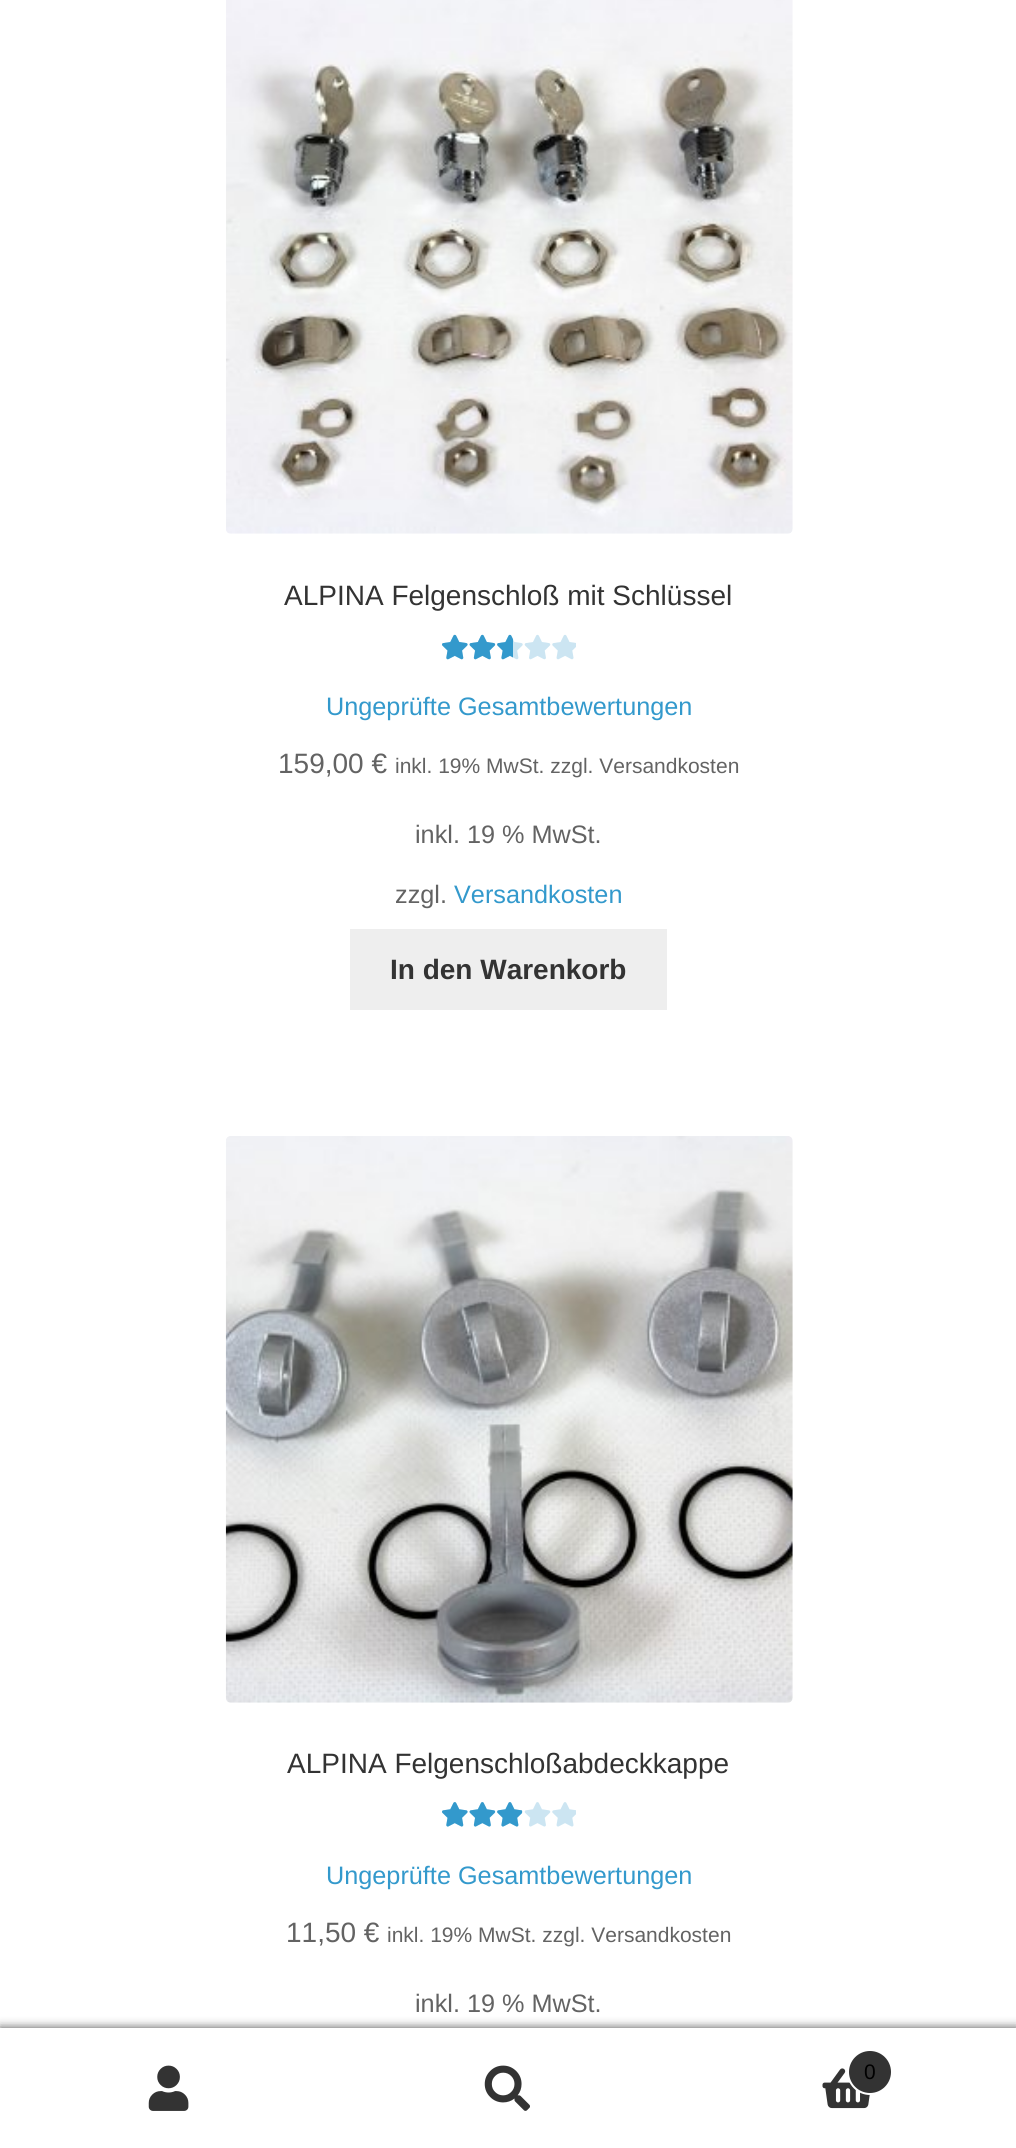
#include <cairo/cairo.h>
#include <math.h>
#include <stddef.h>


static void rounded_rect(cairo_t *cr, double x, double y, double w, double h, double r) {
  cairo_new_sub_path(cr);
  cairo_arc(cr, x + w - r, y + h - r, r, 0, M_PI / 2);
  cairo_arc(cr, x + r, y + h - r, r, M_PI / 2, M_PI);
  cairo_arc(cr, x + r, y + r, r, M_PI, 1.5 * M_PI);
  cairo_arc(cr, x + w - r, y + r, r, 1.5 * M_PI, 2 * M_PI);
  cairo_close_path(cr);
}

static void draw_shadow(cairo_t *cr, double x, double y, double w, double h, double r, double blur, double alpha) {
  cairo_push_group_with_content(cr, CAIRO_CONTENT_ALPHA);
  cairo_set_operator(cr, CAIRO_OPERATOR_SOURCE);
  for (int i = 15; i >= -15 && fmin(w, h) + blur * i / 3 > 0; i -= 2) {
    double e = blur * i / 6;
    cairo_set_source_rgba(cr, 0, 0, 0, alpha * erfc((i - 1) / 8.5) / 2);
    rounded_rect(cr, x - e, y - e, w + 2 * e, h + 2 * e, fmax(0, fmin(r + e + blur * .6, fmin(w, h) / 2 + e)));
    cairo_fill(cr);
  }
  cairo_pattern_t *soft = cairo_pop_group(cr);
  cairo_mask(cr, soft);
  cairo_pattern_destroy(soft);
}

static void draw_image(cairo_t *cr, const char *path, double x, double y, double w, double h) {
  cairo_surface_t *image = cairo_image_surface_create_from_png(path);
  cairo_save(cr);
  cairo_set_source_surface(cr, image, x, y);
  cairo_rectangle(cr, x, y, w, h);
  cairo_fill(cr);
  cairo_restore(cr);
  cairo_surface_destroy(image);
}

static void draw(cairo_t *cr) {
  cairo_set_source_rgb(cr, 1, 1, 1);
  cairo_paint(cr);
  draw_image(cr, "images/1.png", 226, 0, 567, 534);
  draw_image(cr, "images/2.png", 442, 634, 134, 26);
  draw_image(cr, "images/3.png", 442, 634, 71, 26);
  cairo_set_source_rgb(cr, 238 / 255.0, 238 / 255.0, 238 / 255.0);
  cairo_rectangle(cr, 350, 929, 317, 81);
  cairo_fill(cr);
  draw_image(cr, "images/4.png", 225, 1136, 568, 567);
  draw_image(cr, "images/5.png", 442, 1802, 134, 25);
  draw_image(cr, "images/6.png", 442, 1802, 80, 25);
  cairo_set_source_rgb(cr, 0, 0, 0);
  draw_shadow(cr, 0, 2028, 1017, 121, 0, 5, 0.7);
  cairo_set_source_rgb(cr, 1, 1, 1);
  cairo_rectangle(cr, 0, 2028, 1016, 2);
  cairo_fill(cr);
  cairo_rectangle(cr, 0, 2030, 1016, 118);
  cairo_fill(cr);
  draw_image(cr, "images/7.png", 148, 2065, 41, 46);
  draw_image(cr, "images/8.png", 484, 2065, 46, 46);
  draw_image(cr, "images/9.png", 822, 2068, 48, 41);
  cairo_set_source_rgb(cr, 51 / 255.0, 51 / 255.0, 51 / 255.0);
  cairo_arc(cr, 870, 2072, 22, 0, 2 * M_PI);
  cairo_fill_preserve(cr);
  cairo_set_source_rgb(cr, 1, 1, 1);
  cairo_stroke(cr);
  cairo_select_font_face(cr, "Liberation Sans", CAIRO_FONT_SLANT_NORMAL, CAIRO_FONT_WEIGHT_NORMAL);
  cairo_set_font_size(cr, 28);
  cairo_set_source_rgb(cr, 51 / 255.0, 51 / 255.0, 51 / 255.0);
  cairo_move_to(cr, 284, 605);
  cairo_show_text(cr, "ALPINA Felgenschloß mit Schlüssel");
  cairo_set_font_size(cr, 25.25);
  cairo_set_source_rgb(cr, 51 / 255.0, 153 / 255.0, 204 / 255.0);
  cairo_move_to(cr, 326, 715);
  cairo_show_text(cr, "Ungeprüfte Gesamtbewertungen");
  cairo_set_font_size(cr, 28);
  cairo_set_source_rgb(cr, 99 / 255.0, 99 / 255.0, 99 / 255.0);
  cairo_move_to(cr, 278, 773);
  cairo_show_text(cr, "159,00 €");
  cairo_set_font_size(cr, 21);
  cairo_move_to(cr, 395, 773);
  cairo_show_text(cr, "inkl. 19% MwSt. zzgl. Versandkosten");
  cairo_set_font_size(cr, 25.25);
  cairo_move_to(cr, 415, 843);
  cairo_show_text(cr, "inkl. 19 % MwSt.");
  cairo_move_to(cr, 395, 903);
  cairo_show_text(cr, "zzgl.");
  cairo_set_source_rgb(cr, 51 / 255.0, 153 / 255.0, 204 / 255.0);
  cairo_move_to(cr, 454, 903);
  cairo_show_text(cr, "Versandkosten");
  cairo_select_font_face(cr, "Liberation Sans", CAIRO_FONT_SLANT_NORMAL, CAIRO_FONT_WEIGHT_BOLD);
  cairo_set_font_size(cr, 28);
  cairo_set_source_rgb(cr, 51 / 255.0, 51 / 255.0, 51 / 255.0);
  cairo_move_to(cr, 390, 979);
  cairo_show_text(cr, "In den Warenkorb");
  cairo_select_font_face(cr, "Liberation Sans", CAIRO_FONT_SLANT_NORMAL, CAIRO_FONT_WEIGHT_NORMAL);
  cairo_move_to(cr, 287, 1773);
  cairo_show_text(cr, "ALPINA Felgenschloßabdeckkappe");
  cairo_set_font_size(cr, 25.25);
  cairo_set_source_rgb(cr, 51 / 255.0, 153 / 255.0, 204 / 255.0);
  cairo_move_to(cr, 326, 1884);
  cairo_show_text(cr, "Ungeprüfte Gesamtbewertungen");
  cairo_set_font_size(cr, 28);
  cairo_set_source_rgb(cr, 99 / 255.0, 99 / 255.0, 99 / 255.0);
  cairo_move_to(cr, 286, 1942);
  cairo_show_text(cr, "11,50 €");
  cairo_set_font_size(cr, 21);
  cairo_move_to(cr, 387, 1942);
  cairo_show_text(cr, "inkl. 19% MwSt. zzgl. Versandkosten");
  cairo_set_font_size(cr, 25.25);
  cairo_move_to(cr, 415, 2012);
  cairo_show_text(cr, "inkl. 19 % MwSt.");
  cairo_set_font_size(cr, 21);
  cairo_set_source_rgb(cr, 0, 0, 0);
  cairo_move_to(cr, 864, 2079);
  cairo_show_text(cr, "0");
}

int main(void) {
  cairo_surface_t *surface = cairo_image_surface_create(CAIRO_FORMAT_RGB24, 1016, 2148);
  cairo_t *cr = cairo_create(surface);
  cairo_font_options_t *options = cairo_font_options_create();
  cairo_font_options_set_hint_metrics(options, CAIRO_HINT_METRICS_OFF);
  cairo_font_options_set_hint_style(options, CAIRO_HINT_STYLE_NONE);
  cairo_set_font_options(cr, options);
  cairo_set_miter_limit(cr, 4);
  draw(cr);
  cairo_surface_write_to_png(surface, "out.png");
  cairo_font_options_destroy(options);
  cairo_destroy(cr);
  cairo_surface_destroy(surface);
  return 0;
}
